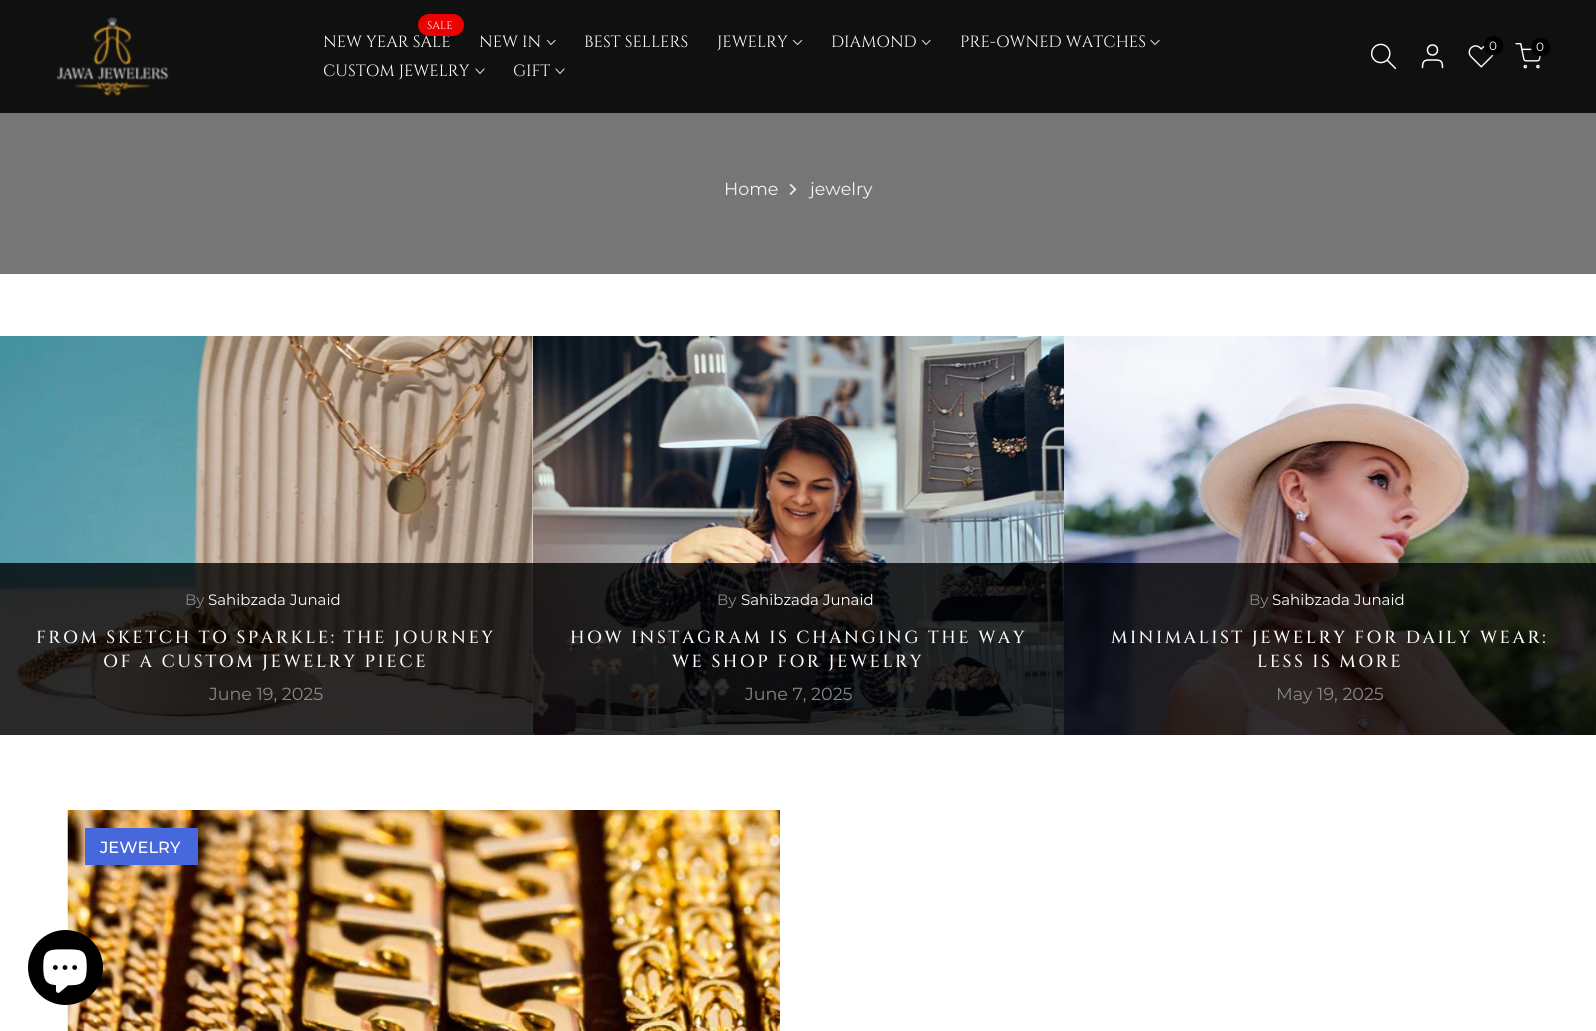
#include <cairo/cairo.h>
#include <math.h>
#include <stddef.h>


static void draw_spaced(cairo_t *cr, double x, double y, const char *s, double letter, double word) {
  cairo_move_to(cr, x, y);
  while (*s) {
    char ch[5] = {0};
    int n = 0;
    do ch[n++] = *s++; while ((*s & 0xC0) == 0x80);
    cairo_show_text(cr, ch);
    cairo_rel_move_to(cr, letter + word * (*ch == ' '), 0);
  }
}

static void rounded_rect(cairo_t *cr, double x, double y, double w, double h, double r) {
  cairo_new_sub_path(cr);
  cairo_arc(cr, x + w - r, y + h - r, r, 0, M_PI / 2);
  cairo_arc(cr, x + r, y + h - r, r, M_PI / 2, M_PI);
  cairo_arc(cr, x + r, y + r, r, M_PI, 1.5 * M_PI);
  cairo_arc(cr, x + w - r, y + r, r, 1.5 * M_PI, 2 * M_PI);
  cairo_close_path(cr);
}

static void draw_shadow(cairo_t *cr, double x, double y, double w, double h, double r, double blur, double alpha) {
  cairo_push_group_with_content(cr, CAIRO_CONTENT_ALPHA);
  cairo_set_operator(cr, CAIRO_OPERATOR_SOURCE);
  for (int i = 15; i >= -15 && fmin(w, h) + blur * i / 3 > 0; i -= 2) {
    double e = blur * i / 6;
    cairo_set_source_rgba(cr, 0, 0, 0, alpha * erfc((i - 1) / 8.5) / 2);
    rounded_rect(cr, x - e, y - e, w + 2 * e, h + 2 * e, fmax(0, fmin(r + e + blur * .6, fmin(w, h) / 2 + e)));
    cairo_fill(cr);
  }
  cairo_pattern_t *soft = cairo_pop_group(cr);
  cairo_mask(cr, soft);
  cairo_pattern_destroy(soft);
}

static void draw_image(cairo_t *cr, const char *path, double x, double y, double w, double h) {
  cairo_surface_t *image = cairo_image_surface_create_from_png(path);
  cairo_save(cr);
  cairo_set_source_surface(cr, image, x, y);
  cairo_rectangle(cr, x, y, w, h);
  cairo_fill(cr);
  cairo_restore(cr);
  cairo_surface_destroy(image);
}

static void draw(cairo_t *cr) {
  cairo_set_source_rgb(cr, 1, 1, 1);
  cairo_paint(cr);
  cairo_set_source_rgb(cr, 16 / 255.0, 16 / 255.0, 16 / 255.0);
  cairo_rectangle(cr, 0, 0, 1596, 113);
  cairo_fill(cr);
  draw_image(cr, "images/1.png", 56, 17, 113, 79);
  cairo_new_path(cr);
  cairo_move_to(cr, 555, 40.5);
  cairo_line_to(cr, 551, 44.5);
  cairo_line_to(cr, 547.5, 40.5);
  cairo_set_source_rgb(cr, 207 / 255.0, 207 / 255.0, 207 / 255.0);
  cairo_set_line_width(cr, 1.1);
  cairo_set_line_cap(cr, CAIRO_LINE_CAP_SQUARE);
  cairo_stroke(cr);
  cairo_new_path(cr);
  cairo_move_to(cr, 801.5, 40.5);
  cairo_line_to(cr, 797.5, 44.5);
  cairo_line_to(cr, 793.5, 40.5);
  cairo_stroke(cr);
  cairo_new_path(cr);
  cairo_move_to(cr, 930, 40.5);
  cairo_line_to(cr, 926, 44.5);
  cairo_line_to(cr, 922.5, 40.5);
  cairo_stroke(cr);
  cairo_new_path(cr);
  cairo_move_to(cr, 1159, 40.5);
  cairo_line_to(cr, 1155, 44.5);
  cairo_line_to(cr, 1151, 40.5);
  cairo_stroke(cr);
  cairo_new_path(cr);
  cairo_move_to(cr, 484, 69);
  cairo_line_to(cr, 480, 73.5);
  cairo_line_to(cr, 476, 69);
  cairo_stroke(cr);
  cairo_new_path(cr);
  cairo_move_to(cr, 564, 69);
  cairo_line_to(cr, 560, 73.5);
  cairo_line_to(cr, 556, 69);
  cairo_stroke(cr);
  draw_image(cr, "images/2.png", 1370, 43, 27, 27);
  cairo_arc(cr, 1432.5, 50, 5, 0, 2 * M_PI);
  cairo_set_source_rgb(cr, 1, 1, 1);
  cairo_set_line_width(cr, 1.5);
  cairo_set_line_cap(cr, CAIRO_LINE_CAP_BUTT);
  cairo_stroke(cr);
  cairo_new_path(cr);
  cairo_move_to(cr, 1442.5, 67.5);
  cairo_curve_to(cr, 1442.5, 59.5, 1439.5, 60, 1432.5, 60);
  cairo_curve_to(cr, 1425.5, 60, 1422.5, 59.5, 1422.5, 67.5);
  cairo_set_line_cap(cr, CAIRO_LINE_CAP_ROUND);
  cairo_set_line_join(cr, CAIRO_LINE_JOIN_ROUND);
  cairo_stroke(cr);
  draw_image(cr, "images/3.png", 1468, 45, 26, 23);
  cairo_set_source_rgb(cr, 0, 0, 0);
  draw_shadow(cr, 1485, 38, 19, 18, 9, 2, 0.3);
  cairo_set_source_rgb(cr, 0, 0, 0);
  cairo_arc(cr, 1493.5, 45.5, 9.5, 0, 2 * M_PI);
  cairo_fill(cr);
  draw_image(cr, "images/4.png", 1515, 43, 26, 26);
  cairo_set_source_rgb(cr, 0, 0, 0);
  draw_shadow(cr, 1533, 39, 18, 19, 9, 2, 0.3);
  cairo_set_source_rgb(cr, 0, 0, 0);
  rounded_rect(cr, 1531, 38, 19, 18, 9);
  cairo_fill(cr);
  cairo_set_source_rgb(cr, 118 / 255.0, 118 / 255.0, 118 / 255.0);
  cairo_rectangle(cr, 0, 113, 1596, 161);
  cairo_fill(cr);
  draw_image(cr, "images/5.png", 789, 184, 8, 11);
  draw_image(cr, "images/6.png", 0, 336, 533, 399);
  cairo_set_source_rgba(cr, 0, 0, 0, 0.8);
  cairo_rectangle(cr, 0, 563, 533, 172);
  cairo_fill(cr);
  draw_image(cr, "images/7.png", 533, 336, 531, 399);
  cairo_rectangle(cr, 533, 563, 531, 172);
  cairo_fill(cr);
  draw_image(cr, "images/8.png", 1064, 336, 532, 399);
  cairo_rectangle(cr, 1064, 563, 532, 172);
  cairo_fill(cr);
  draw_image(cr, "images/9.png", 67, 810, 713, 221);
  cairo_set_source_rgb(cr, 71 / 255.0, 104 / 255.0, 220 / 255.0);
  cairo_rectangle(cr, 85, 828, 113, 37);
  cairo_fill(cr);
  cairo_set_source_rgb(cr, 0, 0, 0);
  cairo_arc(cr, 65.5, 967.5, 37.5, 0, 2 * M_PI);
  cairo_fill(cr);
  draw_image(cr, "images/10.png", 43, 949, 44, 44);
  cairo_select_font_face(cr, "Cinzel", CAIRO_FONT_SLANT_NORMAL, CAIRO_FONT_WEIGHT_NORMAL);
  cairo_set_font_size(cr, 16.25);
  cairo_set_source_rgb(cr, 1, 1, 1);
  cairo_move_to(cr, 323, 47);
  cairo_show_text(cr, "NEW YEAR SALE");
  cairo_set_source_rgb(cr, 236 / 255.0, 1 / 255.0, 1 / 255.0);
  rounded_rect(cr, 418, 14, 46, 22, 11);
  cairo_fill(cr);
  cairo_set_font_size(cr, 11);
  cairo_set_source_rgb(cr, 1, 1, 1);
  cairo_move_to(cr, 427, 29);
  cairo_show_text(cr, "SALE");
  cairo_set_font_size(cr, 16.25);
  cairo_move_to(cr, 479, 47);
  cairo_show_text(cr, "NEW IN");
  cairo_move_to(cr, 584, 47);
  cairo_show_text(cr, "BEST SELLERS");
  cairo_move_to(cr, 717, 47);
  cairo_show_text(cr, "JEWELRY");
  cairo_move_to(cr, 831, 47);
  cairo_show_text(cr, "DIAMOND");
  cairo_move_to(cr, 960, 47);
  cairo_show_text(cr, "PRE-OWNED WATCHES");
  cairo_move_to(cr, 323, 76);
  cairo_show_text(cr, "CUSTOM JEWELRY");
  cairo_move_to(cr, 513, 76);
  cairo_show_text(cr, "GIFT");
  cairo_select_font_face(cr, "Montserrat", CAIRO_FONT_SLANT_NORMAL, CAIRO_FONT_WEIGHT_NORMAL);
  cairo_set_font_size(cr, 12);
  cairo_move_to(cr, 1489, 50);
  cairo_show_text(cr, "0");
  cairo_move_to(cr, 1536, 51);
  cairo_show_text(cr, "0");
  cairo_set_font_size(cr, 17.5);
  cairo_set_source_rgb(cr, 242 / 255.0, 242 / 255.0, 242 / 255.0);
  cairo_move_to(cr, 724, 195);
  cairo_show_text(cr, "Home");
  cairo_move_to(cr, 810, 195);
  cairo_show_text(cr, "jewelry");
  cairo_set_font_size(cr, 15);
  cairo_set_source_rgb(cr, 135 / 255.0, 135 / 255.0, 135 / 255.0);
  cairo_move_to(cr, 185, 605);
  cairo_show_text(cr, "By");
  cairo_set_source_rgb(cr, 1, 1, 1);
  cairo_move_to(cr, 208, 605);
  cairo_show_text(cr, "Sahibzada Junaid");
  cairo_select_font_face(cr, "Cinzel Medium", CAIRO_FONT_SLANT_NORMAL, CAIRO_FONT_WEIGHT_NORMAL);
  cairo_set_font_size(cr, 17.5);
  draw_spaced(cr, 36, 643, "FROM SKETCH TO SPARKLE: THE JOURNEY", 2.5, 0);
  draw_spaced(cr, 103, 667, "OF A CUSTOM JEWELRY PIECE", 2.5, 0);
  cairo_select_font_face(cr, "Montserrat", CAIRO_FONT_SLANT_NORMAL, CAIRO_FONT_WEIGHT_NORMAL);
  cairo_set_source_rgb(cr, 135 / 255.0, 135 / 255.0, 135 / 255.0);
  cairo_move_to(cr, 209, 700);
  cairo_show_text(cr, "June 19, 2025");
  cairo_set_font_size(cr, 15);
  cairo_move_to(cr, 717, 605);
  cairo_show_text(cr, "By");
  cairo_set_source_rgb(cr, 1, 1, 1);
  cairo_move_to(cr, 741, 605);
  cairo_show_text(cr, "Sahibzada Junaid");
  cairo_select_font_face(cr, "Cinzel Medium", CAIRO_FONT_SLANT_NORMAL, CAIRO_FONT_WEIGHT_NORMAL);
  cairo_set_font_size(cr, 17.5);
  draw_spaced(cr, 570, 643, "HOW INSTAGRAM IS CHANGING THE WAY", 2.5, 0);
  draw_spaced(cr, 672, 667, "WE SHOP FOR JEWELRY", 2.5, 0);
  cairo_select_font_face(cr, "Montserrat", CAIRO_FONT_SLANT_NORMAL, CAIRO_FONT_WEIGHT_NORMAL);
  cairo_set_source_rgb(cr, 135 / 255.0, 135 / 255.0, 135 / 255.0);
  cairo_move_to(cr, 745, 700);
  cairo_show_text(cr, "June 7, 2025");
  cairo_set_font_size(cr, 15);
  cairo_move_to(cr, 1249, 605);
  cairo_show_text(cr, "By");
  cairo_set_source_rgb(cr, 1, 1, 1);
  cairo_move_to(cr, 1272, 605);
  cairo_show_text(cr, "Sahibzada Junaid");
  cairo_select_font_face(cr, "Cinzel Medium", CAIRO_FONT_SLANT_NORMAL, CAIRO_FONT_WEIGHT_NORMAL);
  cairo_set_font_size(cr, 17.5);
  draw_spaced(cr, 1111, 643, "MINIMALIST JEWELRY FOR DAILY WEAR:", 2.5, 0);
  draw_spaced(cr, 1257, 667, "LESS IS MORE", 2.5, 0);
  cairo_select_font_face(cr, "Montserrat", CAIRO_FONT_SLANT_NORMAL, CAIRO_FONT_WEIGHT_NORMAL);
  cairo_set_source_rgb(cr, 135 / 255.0, 135 / 255.0, 135 / 255.0);
  cairo_move_to(cr, 1276, 700);
  cairo_show_text(cr, "May 19, 2025");
  cairo_select_font_face(cr, "Montserrat Medium", CAIRO_FONT_SLANT_NORMAL, CAIRO_FONT_WEIGHT_NORMAL);
  cairo_set_font_size(cr, 16.25);
  cairo_set_source_rgb(cr, 1, 1, 1);
  cairo_move_to(cr, 100, 853);
  cairo_show_text(cr, "JEWELRY");
}

int main(void) {
  cairo_surface_t *surface = cairo_image_surface_create(CAIRO_FORMAT_RGB24, 1596, 1031);
  cairo_t *cr = cairo_create(surface);
  cairo_font_options_t *options = cairo_font_options_create();
  cairo_font_options_set_hint_metrics(options, CAIRO_HINT_METRICS_OFF);
  cairo_font_options_set_hint_style(options, CAIRO_HINT_STYLE_NONE);
  cairo_set_font_options(cr, options);
  cairo_set_miter_limit(cr, 4);
  draw(cr);
  cairo_surface_write_to_png(surface, "out.png");
  cairo_font_options_destroy(options);
  cairo_destroy(cr);
  cairo_surface_destroy(surface);
  return 0;
}
